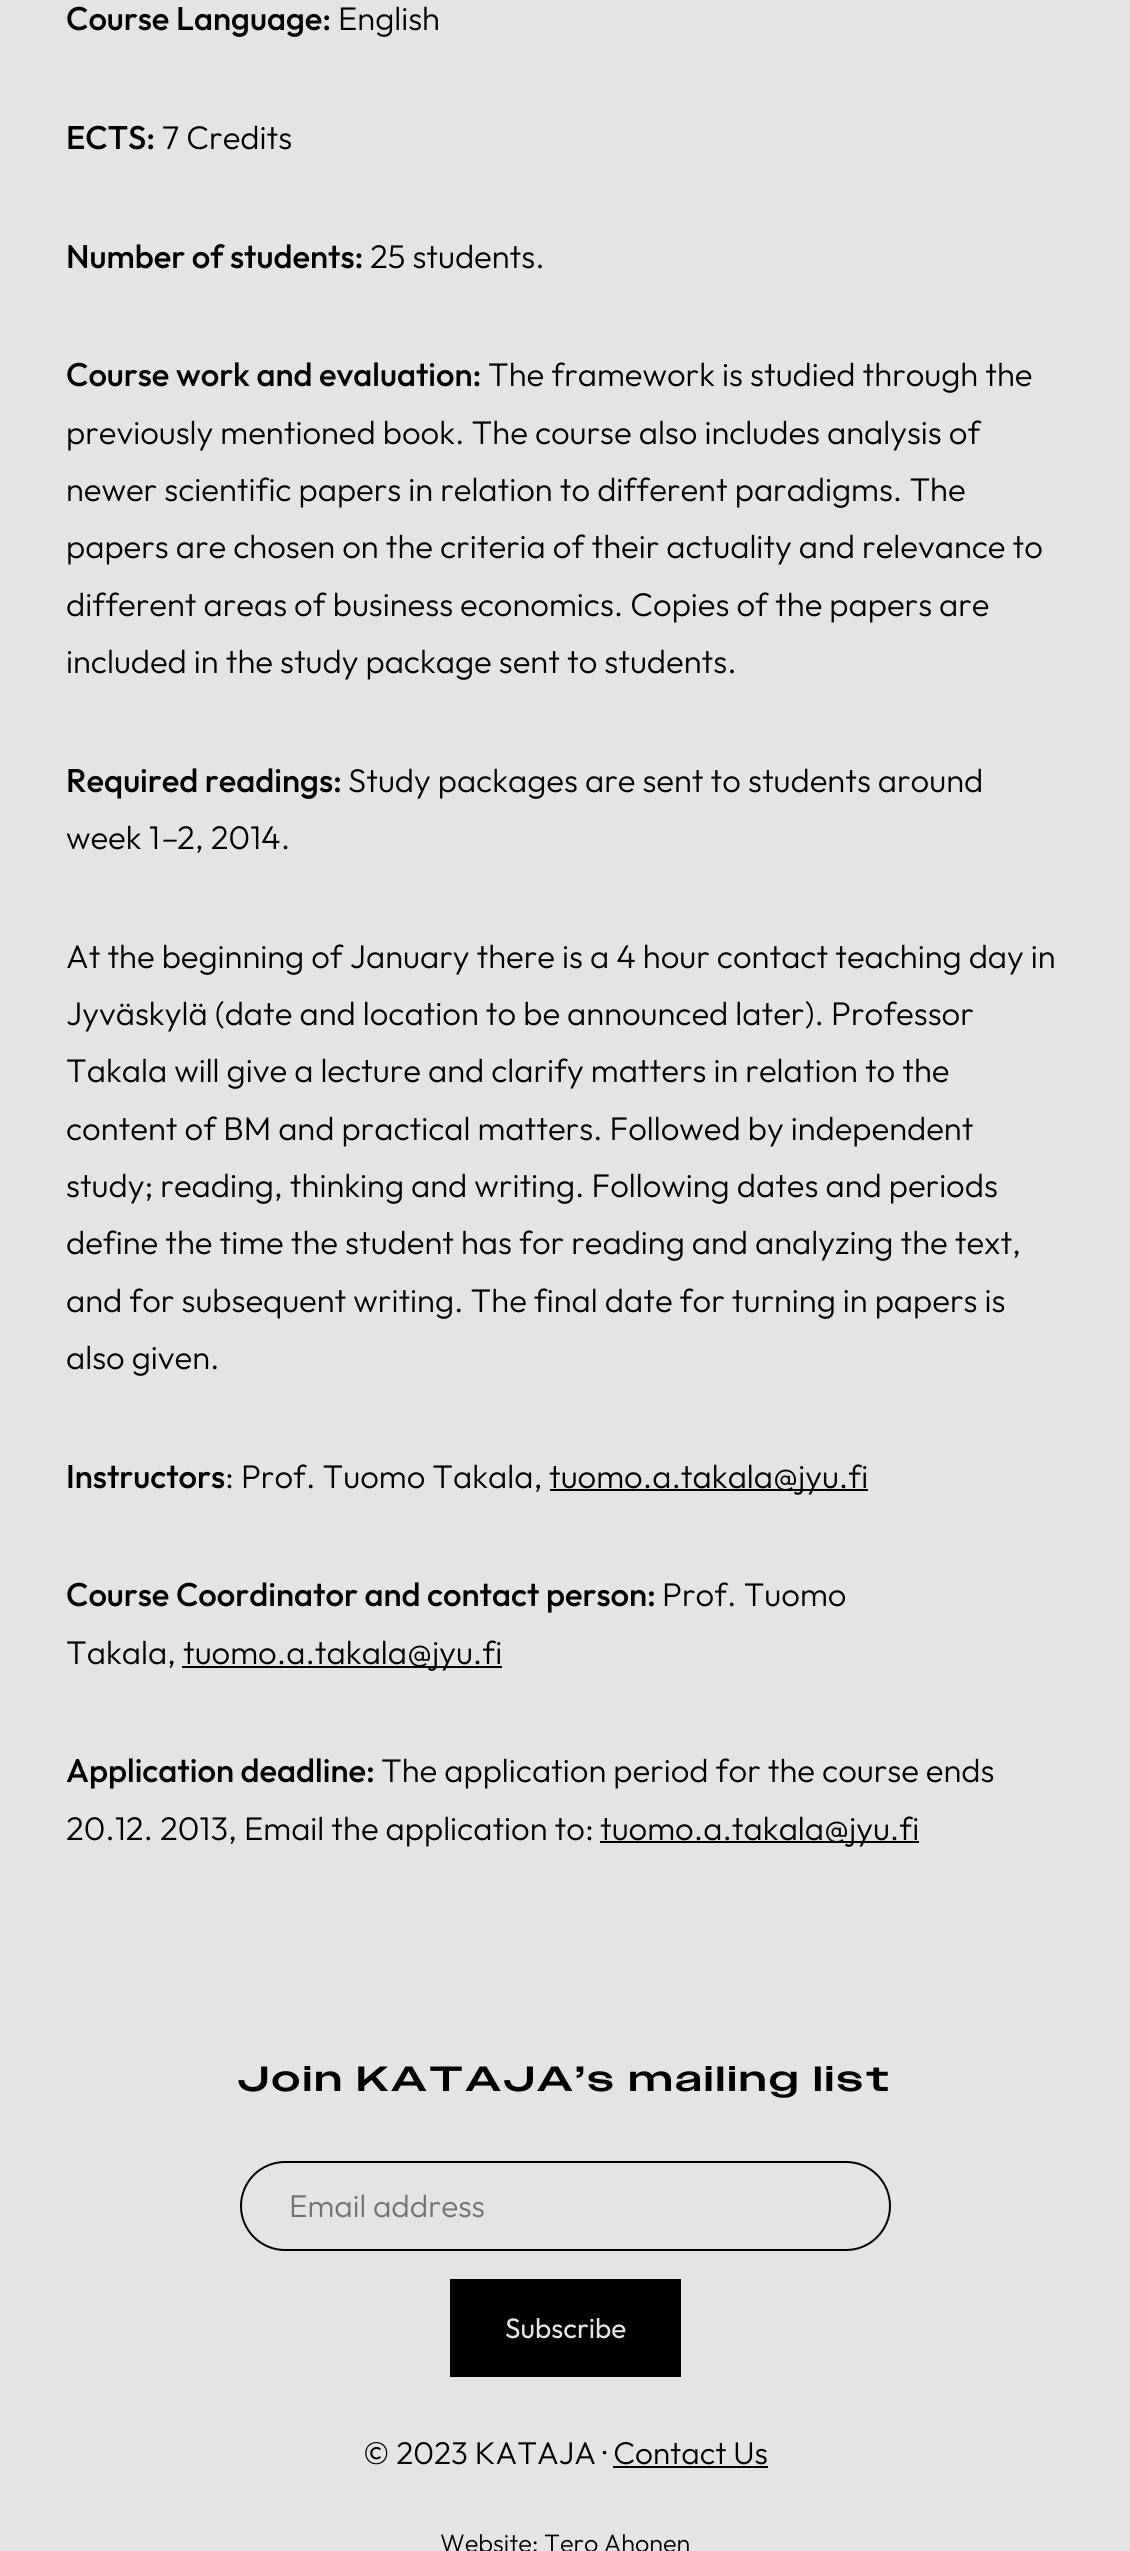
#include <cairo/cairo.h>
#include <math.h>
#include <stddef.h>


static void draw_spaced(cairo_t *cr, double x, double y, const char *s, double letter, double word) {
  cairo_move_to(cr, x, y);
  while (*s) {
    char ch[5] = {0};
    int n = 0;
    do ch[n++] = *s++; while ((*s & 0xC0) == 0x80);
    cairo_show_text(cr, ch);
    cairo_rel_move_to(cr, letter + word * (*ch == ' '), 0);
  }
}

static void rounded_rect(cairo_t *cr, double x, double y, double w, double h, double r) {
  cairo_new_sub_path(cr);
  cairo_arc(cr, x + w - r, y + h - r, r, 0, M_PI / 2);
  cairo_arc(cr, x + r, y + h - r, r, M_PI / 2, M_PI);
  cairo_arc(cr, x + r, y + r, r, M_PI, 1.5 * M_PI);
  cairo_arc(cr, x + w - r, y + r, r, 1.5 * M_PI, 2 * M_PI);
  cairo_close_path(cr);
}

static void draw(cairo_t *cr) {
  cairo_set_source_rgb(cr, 228 / 255.0, 228 / 255.0, 228 / 255.0);
  cairo_paint(cr);
  cairo_set_source_rgb(cr, 0, 0, 0);
  cairo_rectangle(cr, 550, 1489, 318, 2);
  cairo_fill(cr);
  cairo_rectangle(cr, 182, 1666, 320, 2);
  cairo_fill(cr);
  cairo_rectangle(cr, 600, 1841, 319, 2);
  cairo_fill(cr);
  rounded_rect(cr, 241, 2162, 649, 88, 44);
  cairo_stroke(cr);
  cairo_rectangle(cr, 450, 2279, 231, 98);
  cairo_fill(cr);
  cairo_rectangle(cr, 613, 2466, 155, 2);
  cairo_fill(cr);
  cairo_select_font_face(cr, "Outfit Medium", CAIRO_FONT_SLANT_NORMAL, CAIRO_FONT_WEIGHT_NORMAL);
  cairo_set_font_size(cr, 32.8);
  cairo_move_to(cr, 66, 30);
  cairo_show_text(cr, "Course Language:");
  cairo_select_font_face(cr, "Outfit Light", CAIRO_FONT_SLANT_NORMAL, CAIRO_FONT_WEIGHT_NORMAL);
  cairo_move_to(cr, 338, 30);
  cairo_show_text(cr, "English");
  cairo_select_font_face(cr, "Outfit Medium", CAIRO_FONT_SLANT_NORMAL, CAIRO_FONT_WEIGHT_NORMAL);
  cairo_move_to(cr, 66, 149);
  cairo_show_text(cr, "ECTS:");
  cairo_select_font_face(cr, "Outfit Light", CAIRO_FONT_SLANT_NORMAL, CAIRO_FONT_WEIGHT_NORMAL);
  cairo_move_to(cr, 162, 149);
  cairo_show_text(cr, "7 Credits");
  cairo_select_font_face(cr, "Outfit Medium", CAIRO_FONT_SLANT_NORMAL, CAIRO_FONT_WEIGHT_NORMAL);
  cairo_move_to(cr, 66, 268);
  cairo_show_text(cr, "Number of students:");
  cairo_select_font_face(cr, "Outfit Light", CAIRO_FONT_SLANT_NORMAL, CAIRO_FONT_WEIGHT_NORMAL);
  cairo_move_to(cr, 370, 268);
  cairo_show_text(cr, "25 students.");
  cairo_select_font_face(cr, "Outfit Medium", CAIRO_FONT_SLANT_NORMAL, CAIRO_FONT_WEIGHT_NORMAL);
  cairo_move_to(cr, 66, 386);
  cairo_show_text(cr, "Course work and evaluation:");
  cairo_select_font_face(cr, "Outfit Light", CAIRO_FONT_SLANT_NORMAL, CAIRO_FONT_WEIGHT_NORMAL);
  cairo_move_to(cr, 488, 386);
  cairo_show_text(cr, "The framework is studied through the");
  cairo_move_to(cr, 66, 444);
  cairo_show_text(cr, "previously mentioned book. The course also includes analysis of");
  cairo_move_to(cr, 66, 501);
  cairo_show_text(cr, "newer scientific papers in relation to different paradigms. The");
  cairo_move_to(cr, 66, 558);
  cairo_show_text(cr, "papers are chosen on the criteria of their actuality and relevance to");
  cairo_move_to(cr, 66, 616);
  cairo_show_text(cr, "different areas of business economics. Copies of the papers are");
  cairo_move_to(cr, 66, 673);
  cairo_show_text(cr, "included in the study package sent to students.");
  cairo_select_font_face(cr, "Outfit Medium", CAIRO_FONT_SLANT_NORMAL, CAIRO_FONT_WEIGHT_NORMAL);
  cairo_move_to(cr, 66, 792);
  cairo_show_text(cr, "Required readings:");
  cairo_select_font_face(cr, "Outfit Light", CAIRO_FONT_SLANT_NORMAL, CAIRO_FONT_WEIGHT_NORMAL);
  cairo_move_to(cr, 348, 792);
  cairo_show_text(cr, "Study packages are sent to students around");
  cairo_move_to(cr, 66, 849);
  cairo_show_text(cr, "week 1");
  cairo_select_font_face(cr, "Outfit Light", CAIRO_FONT_SLANT_ITALIC, CAIRO_FONT_WEIGHT_NORMAL);
  cairo_move_to(cr, 159, 849);
  cairo_show_text(cr, "–");
  cairo_select_font_face(cr, "Outfit Light", CAIRO_FONT_SLANT_NORMAL, CAIRO_FONT_WEIGHT_NORMAL);
  cairo_move_to(cr, 177, 849);
  cairo_show_text(cr, "2, 2014.");
  cairo_move_to(cr, 66, 968);
  cairo_show_text(cr, "At the beginning of January there is a 4 hour contact teaching day in");
  cairo_move_to(cr, 66, 1025);
  cairo_show_text(cr, "Jyväskylä (date and location to be announced later). Professor");
  cairo_move_to(cr, 66, 1082);
  cairo_show_text(cr, "Takala will give a lecture and clarify matters in relation to the");
  cairo_move_to(cr, 66, 1140);
  cairo_show_text(cr, "content of BM and practical matters. Followed by independent");
  cairo_move_to(cr, 66, 1197);
  cairo_show_text(cr, "study; reading, thinking and writing. Following dates and periods");
  cairo_move_to(cr, 66, 1254);
  cairo_show_text(cr, "define the time the student has for reading and analyzing the text,");
  cairo_move_to(cr, 66, 1312);
  cairo_show_text(cr, "and for subsequent writing. The final date for turning in papers is");
  cairo_move_to(cr, 66, 1369);
  cairo_show_text(cr, "also given.");
  cairo_select_font_face(cr, "Outfit Medium", CAIRO_FONT_SLANT_NORMAL, CAIRO_FONT_WEIGHT_NORMAL);
  cairo_move_to(cr, 66, 1488);
  cairo_show_text(cr, "Instructors");
  cairo_select_font_face(cr, "Outfit Light", CAIRO_FONT_SLANT_NORMAL, CAIRO_FONT_WEIGHT_NORMAL);
  cairo_move_to(cr, 225, 1488);
  cairo_show_text(cr, ": Prof. Tuomo Takala,");
  cairo_move_to(cr, 549, 1488);
  cairo_show_text(cr, "tuomo.a.takala@jyu.fi");
  cairo_select_font_face(cr, "Outfit Medium", CAIRO_FONT_SLANT_NORMAL, CAIRO_FONT_WEIGHT_NORMAL);
  cairo_move_to(cr, 66, 1606);
  cairo_show_text(cr, "Course Coordinator and contact person:");
  cairo_select_font_face(cr, "Outfit Light", CAIRO_FONT_SLANT_NORMAL, CAIRO_FONT_WEIGHT_NORMAL);
  cairo_move_to(cr, 662, 1606);
  cairo_show_text(cr, "Prof. Tuomo");
  cairo_move_to(cr, 66, 1664);
  cairo_show_text(cr, "Takala,");
  cairo_move_to(cr, 183, 1664);
  cairo_show_text(cr, "tuomo.a.takala@jyu.fi");
  cairo_select_font_face(cr, "Outfit Medium", CAIRO_FONT_SLANT_NORMAL, CAIRO_FONT_WEIGHT_NORMAL);
  cairo_move_to(cr, 66, 1782);
  cairo_show_text(cr, "Application deadline:");
  cairo_select_font_face(cr, "Outfit Light", CAIRO_FONT_SLANT_NORMAL, CAIRO_FONT_WEIGHT_NORMAL);
  cairo_move_to(cr, 381, 1782);
  cairo_show_text(cr, "The application period for the course ends");
  cairo_move_to(cr, 66, 1840);
  cairo_show_text(cr, "20.12. 2013, Email the application to:");
  cairo_move_to(cr, 600, 1840);
  cairo_show_text(cr, "tuomo.a.takala@jyu.fi");
  cairo_select_font_face(cr, "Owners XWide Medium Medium", CAIRO_FONT_SLANT_NORMAL, CAIRO_FONT_WEIGHT_NORMAL);
  cairo_set_font_size(cr, 35);
  draw_spaced(cr, 238, 2091, "Join KATAJA’s mailing list", 3.5, 0);
  cairo_select_font_face(cr, "Outfit Light", CAIRO_FONT_SLANT_NORMAL, CAIRO_FONT_WEIGHT_NORMAL);
  cairo_set_font_size(cr, 31.5);
  cairo_set_source_rgb(cr, 114 / 255.0, 114 / 255.0, 114 / 255.0);
  cairo_move_to(cr, 289, 2217);
  cairo_show_text(cr, "Email address");
  cairo_select_font_face(cr, "Outfit", CAIRO_FONT_SLANT_NORMAL, CAIRO_FONT_WEIGHT_NORMAL);
  cairo_set_font_size(cr, 28);
  cairo_set_source_rgb(cr, 228 / 255.0, 228 / 255.0, 228 / 255.0);
  cairo_move_to(cr, 505, 2338);
  cairo_show_text(cr, "Subscribe");
  cairo_select_font_face(cr, "Outfit Light", CAIRO_FONT_SLANT_NORMAL, CAIRO_FONT_WEIGHT_NORMAL);
  cairo_set_font_size(cr, 31.5);
  cairo_set_source_rgb(cr, 0, 0, 0);
  cairo_move_to(cr, 363, 2464);
  cairo_show_text(cr, "© 2023 KATAJA · Contact Us");
  cairo_set_font_size(cr, 25.25);
  cairo_move_to(cr, 440, 2552);
  cairo_show_text(cr, "Website: Tero Ahonen");
}

int main(void) {
  cairo_surface_t *surface = cairo_image_surface_create(CAIRO_FORMAT_RGB24, 1130, 2551);
  cairo_t *cr = cairo_create(surface);
  cairo_font_options_t *options = cairo_font_options_create();
  cairo_font_options_set_hint_metrics(options, CAIRO_HINT_METRICS_OFF);
  cairo_font_options_set_hint_style(options, CAIRO_HINT_STYLE_NONE);
  cairo_set_font_options(cr, options);
  cairo_set_miter_limit(cr, 4);
  draw(cr);
  cairo_surface_write_to_png(surface, "out.png");
  cairo_font_options_destroy(options);
  cairo_destroy(cr);
  cairo_surface_destroy(surface);
  return 0;
}
